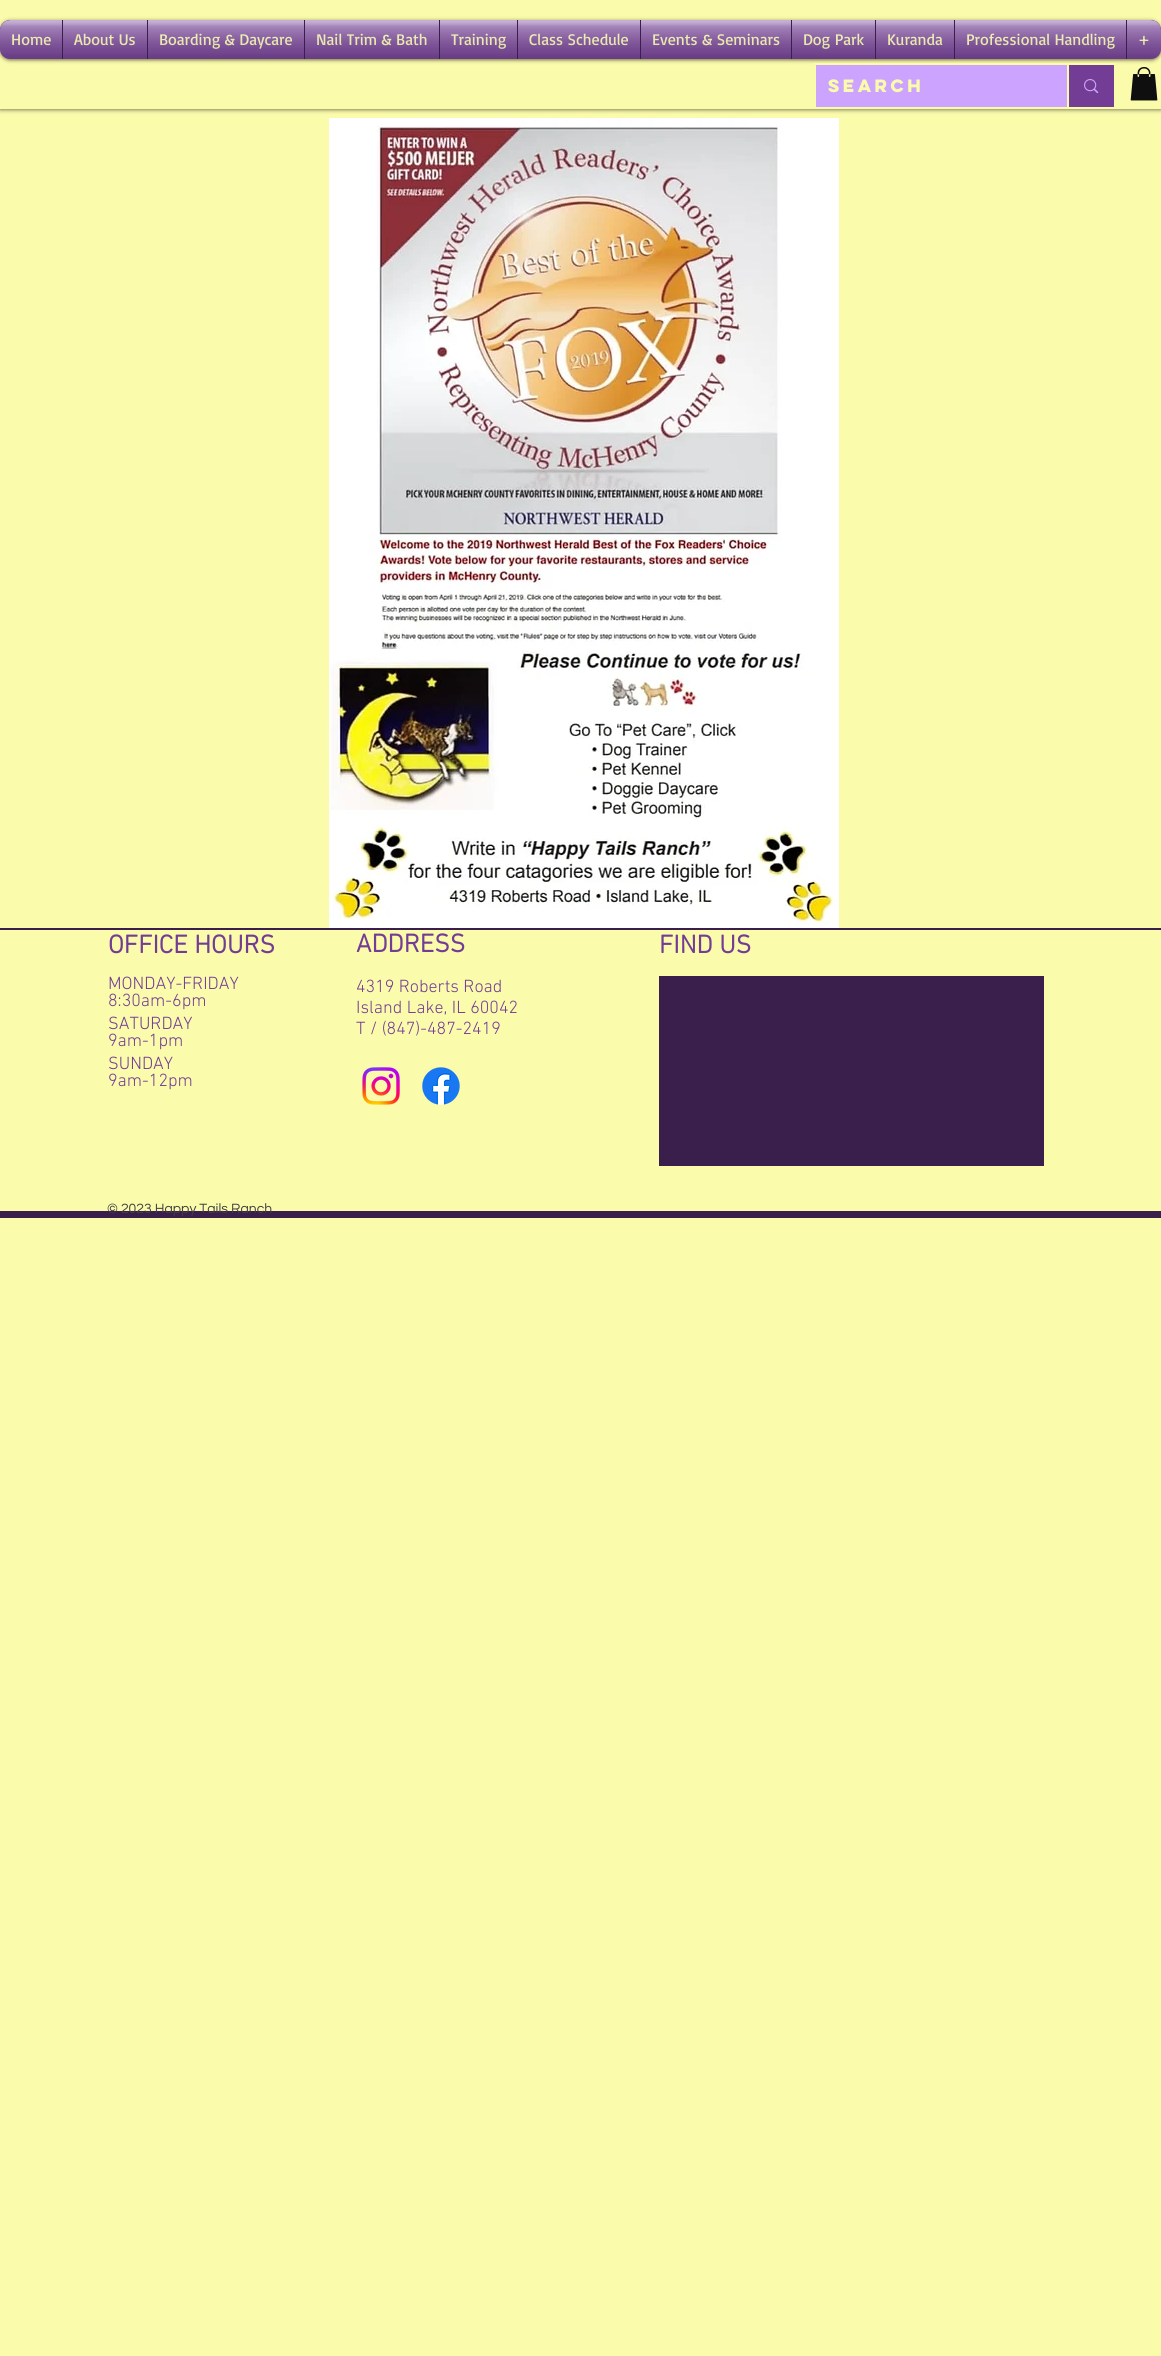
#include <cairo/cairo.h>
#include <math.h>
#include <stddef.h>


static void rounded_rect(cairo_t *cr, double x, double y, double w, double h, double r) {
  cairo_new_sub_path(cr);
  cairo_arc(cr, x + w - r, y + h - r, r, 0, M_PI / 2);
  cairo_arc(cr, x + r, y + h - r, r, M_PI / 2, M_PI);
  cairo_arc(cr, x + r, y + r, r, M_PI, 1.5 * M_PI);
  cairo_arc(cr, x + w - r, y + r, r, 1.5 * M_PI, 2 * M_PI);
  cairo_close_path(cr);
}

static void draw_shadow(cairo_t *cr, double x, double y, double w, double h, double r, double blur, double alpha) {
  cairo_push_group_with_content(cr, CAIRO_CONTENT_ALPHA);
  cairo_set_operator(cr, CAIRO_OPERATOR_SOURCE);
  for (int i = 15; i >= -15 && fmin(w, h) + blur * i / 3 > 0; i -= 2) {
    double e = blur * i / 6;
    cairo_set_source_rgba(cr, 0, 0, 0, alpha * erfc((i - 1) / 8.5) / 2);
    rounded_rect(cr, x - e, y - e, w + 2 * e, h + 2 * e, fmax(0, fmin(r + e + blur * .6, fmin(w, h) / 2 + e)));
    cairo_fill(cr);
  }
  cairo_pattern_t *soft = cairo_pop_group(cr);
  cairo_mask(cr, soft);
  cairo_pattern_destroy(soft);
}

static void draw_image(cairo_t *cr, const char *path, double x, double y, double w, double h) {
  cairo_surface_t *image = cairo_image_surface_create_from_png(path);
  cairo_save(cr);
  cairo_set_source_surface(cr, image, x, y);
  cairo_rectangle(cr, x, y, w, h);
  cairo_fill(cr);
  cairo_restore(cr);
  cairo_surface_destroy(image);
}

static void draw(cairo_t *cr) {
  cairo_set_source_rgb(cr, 251 / 255.0, 251 / 255.0, 172 / 255.0);
  cairo_paint(cr);
  cairo_save(cr);
  cairo_rectangle(cr, 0, 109, 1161, 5);
  cairo_clip(cr);
  cairo_set_source_rgb(cr, 0, 0, 0);
  draw_shadow(cr, 0, 0, 1161, 109, 0, 2.5, 0.7);
  cairo_restore(cr);
  cairo_set_source_rgb(cr, 0, 0, 0);
  draw_shadow(cr, 0, 21, 1161, 39, 10, 2, 0.6);
  draw_image(cr, "images/1.png", 0, 20, 1161, 39);
  draw_image(cr, "images/2.png", 0, 29, 1161, 30);
  cairo_set_source_rgb(cr, 115 / 255.0, 61 / 255.0, 149 / 255.0);
  cairo_new_path(cr);
  cairo_move_to(cr, 10, 20);
  cairo_line_to(cr, 62, 20);
  cairo_line_to(cr, 62, 59);
  cairo_line_to(cr, 10, 59);
  cairo_curve_to(cr, 4.5, 59, 0, 54.5, 0, 49);
  cairo_line_to(cr, 0, 30);
  cairo_curve_to(cr, 0, 24.5, 4.5, 20, 10, 20);
  cairo_close_path(cr);
  cairo_fill(cr);
  cairo_rectangle(cr, 63, 20, 84, 39);
  cairo_fill(cr);
  cairo_set_source_rgb(cr, 58 / 255.0, 30 / 255.0, 75 / 255.0);
  cairo_rectangle(cr, 62, 20, 1, 39);
  cairo_fill(cr);
  cairo_set_source_rgb(cr, 115 / 255.0, 61 / 255.0, 149 / 255.0);
  cairo_rectangle(cr, 148, 20, 156, 39);
  cairo_fill(cr);
  cairo_set_source_rgb(cr, 58 / 255.0, 30 / 255.0, 75 / 255.0);
  cairo_rectangle(cr, 147, 20, 1, 39);
  cairo_fill(cr);
  cairo_set_source_rgb(cr, 115 / 255.0, 61 / 255.0, 149 / 255.0);
  cairo_rectangle(cr, 305, 20, 134, 39);
  cairo_fill(cr);
  cairo_set_source_rgb(cr, 58 / 255.0, 30 / 255.0, 75 / 255.0);
  cairo_rectangle(cr, 304, 20, 1, 39);
  cairo_fill(cr);
  cairo_set_source_rgb(cr, 115 / 255.0, 61 / 255.0, 149 / 255.0);
  cairo_rectangle(cr, 440, 20, 77, 39);
  cairo_fill(cr);
  cairo_set_source_rgb(cr, 58 / 255.0, 30 / 255.0, 75 / 255.0);
  cairo_rectangle(cr, 439, 20, 1, 39);
  cairo_fill(cr);
  cairo_set_source_rgb(cr, 115 / 255.0, 61 / 255.0, 149 / 255.0);
  cairo_rectangle(cr, 518, 20, 122, 39);
  cairo_fill(cr);
  cairo_set_source_rgb(cr, 58 / 255.0, 30 / 255.0, 75 / 255.0);
  cairo_rectangle(cr, 517, 20, 1, 39);
  cairo_fill(cr);
  cairo_set_source_rgb(cr, 115 / 255.0, 61 / 255.0, 149 / 255.0);
  cairo_rectangle(cr, 641, 20, 150, 39);
  cairo_fill(cr);
  cairo_set_source_rgb(cr, 58 / 255.0, 30 / 255.0, 75 / 255.0);
  cairo_rectangle(cr, 640, 20, 1, 39);
  cairo_fill(cr);
  cairo_set_source_rgb(cr, 115 / 255.0, 61 / 255.0, 149 / 255.0);
  cairo_rectangle(cr, 792, 20, 83, 39);
  cairo_fill(cr);
  cairo_set_source_rgb(cr, 58 / 255.0, 30 / 255.0, 75 / 255.0);
  cairo_rectangle(cr, 791, 20, 1, 39);
  cairo_fill(cr);
  cairo_set_source_rgb(cr, 115 / 255.0, 61 / 255.0, 149 / 255.0);
  cairo_rectangle(cr, 876, 20, 78, 39);
  cairo_fill(cr);
  cairo_set_source_rgb(cr, 58 / 255.0, 30 / 255.0, 75 / 255.0);
  cairo_rectangle(cr, 875, 20, 1, 39);
  cairo_fill(cr);
  cairo_set_source_rgb(cr, 115 / 255.0, 61 / 255.0, 149 / 255.0);
  cairo_rectangle(cr, 955, 20, 171, 39);
  cairo_fill(cr);
  cairo_set_source_rgb(cr, 58 / 255.0, 30 / 255.0, 75 / 255.0);
  cairo_rectangle(cr, 954, 20, 1, 39);
  cairo_fill(cr);
  cairo_set_source_rgb(cr, 115 / 255.0, 61 / 255.0, 149 / 255.0);
  cairo_new_path(cr);
  cairo_move_to(cr, 1126, 20);
  cairo_line_to(cr, 1151, 20);
  cairo_curve_to(cr, 1156.5, 20, 1161, 24.5, 1161, 30);
  cairo_line_to(cr, 1161, 49);
  cairo_curve_to(cr, 1161, 54.5, 1156.5, 59, 1151, 59);
  cairo_line_to(cr, 1126, 59);
  cairo_close_path(cr);
  cairo_fill(cr);
  cairo_set_source_rgb(cr, 58 / 255.0, 30 / 255.0, 75 / 255.0);
  cairo_rectangle(cr, 1126, 20, 1, 39);
  cairo_fill(cr);
  cairo_rectangle(cr, 815, 64, 300, 44);
  cairo_set_source_rgb(cr, 251 / 255.0, 251 / 255.0, 172 / 255.0);
  cairo_stroke(cr);
  cairo_set_source_rgb(cr, 204 / 255.0, 163 / 255.0, 1);
  cairo_rectangle(cr, 816, 65, 251, 42);
  cairo_fill(cr);
  cairo_set_source_rgb(cr, 115 / 255.0, 61 / 255.0, 149 / 255.0);
  cairo_rectangle(cr, 1069, 65, 45, 42);
  cairo_fill(cr);
  draw_image(cr, "images/25.png", 1084, 79, 15, 14);
  draw_image(cr, "images/26.png", 1130, 67, 28, 34);
  draw_image(cr, "images/27.png", 329, 118, 510, 810);
  cairo_set_source_rgb(cr, 58 / 255.0, 30 / 255.0, 75 / 255.0);
  cairo_rectangle(cr, 0, 928, 1161, 2);
  cairo_fill(cr);
  cairo_rectangle(cr, 0, 1211, 1161, 7);
  cairo_fill(cr);
  draw_image(cr, "images/28.png", 362, 1067, 38, 38);
  draw_image(cr, "images/29.png", 422, 1067, 38, 38);
  cairo_rectangle(cr, 659, 976, 385, 190);
  cairo_fill(cr);
  cairo_select_font_face(cr, "Basic", CAIRO_FONT_SLANT_NORMAL, CAIRO_FONT_WEIGHT_NORMAL);
  cairo_set_font_size(cr, 16);
  cairo_set_source_rgb(cr, 251 / 255.0, 251 / 255.0, 172 / 255.0);
  cairo_move_to(cr, 11, 45);
  cairo_show_text(cr, "Home");
  draw_image(cr, "images/3.png", 0, 20, 62, 39);
  draw_image(cr, "images/4.png", 0, 25, 62, 34);
  cairo_move_to(cr, 74, 45);
  cairo_show_text(cr, "About Us");
  draw_image(cr, "images/5.png", 63, 20, 84, 39);
  draw_image(cr, "images/6.png", 63, 25, 84, 34);
  cairo_move_to(cr, 159, 45);
  cairo_show_text(cr, "Boarding & Daycare");
  draw_image(cr, "images/7.png", 148, 20, 156, 39);
  draw_image(cr, "images/8.png", 148, 25, 156, 34);
  cairo_move_to(cr, 316, 45);
  cairo_show_text(cr, "Nail Trim & Bath");
  draw_image(cr, "images/9.png", 305, 20, 134, 39);
  draw_image(cr, "images/10.png", 305, 25, 134, 34);
  cairo_move_to(cr, 451, 45);
  cairo_show_text(cr, "Training");
  draw_image(cr, "images/11.png", 440, 20, 77, 39);
  draw_image(cr, "images/12.png", 440, 25, 77, 34);
  cairo_move_to(cr, 529, 45);
  cairo_show_text(cr, "Class Schedule");
  draw_image(cr, "images/13.png", 518, 20, 122, 39);
  draw_image(cr, "images/14.png", 518, 25, 122, 34);
  cairo_move_to(cr, 652, 45);
  cairo_show_text(cr, "Events & Seminars");
  draw_image(cr, "images/15.png", 641, 20, 150, 39);
  draw_image(cr, "images/16.png", 641, 25, 150, 34);
  cairo_move_to(cr, 803, 45);
  cairo_show_text(cr, "Dog Park");
  draw_image(cr, "images/17.png", 792, 20, 83, 39);
  draw_image(cr, "images/18.png", 792, 25, 83, 34);
  cairo_move_to(cr, 887, 45);
  cairo_show_text(cr, "Kuranda");
  draw_image(cr, "images/19.png", 876, 20, 78, 39);
  draw_image(cr, "images/20.png", 876, 25, 78, 34);
  cairo_move_to(cr, 966, 45);
  cairo_show_text(cr, "Professional Handling");
  draw_image(cr, "images/21.png", 955, 20, 171, 39);
  draw_image(cr, "images/22.png", 955, 25, 171, 34);
  cairo_move_to(cr, 1138, 45);
  cairo_show_text(cr, "+");
  draw_image(cr, "images/23.png", 1127, 20, 34, 39);
  draw_image(cr, "images/24.png", 1127, 25, 34, 34);
  cairo_select_font_face(cr, "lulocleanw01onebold", CAIRO_FONT_SLANT_NORMAL, CAIRO_FONT_WEIGHT_BOLD);
  cairo_move_to(cr, 828, 92);
  cairo_show_text(cr, "Search");
  cairo_select_font_face(cr, "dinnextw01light", CAIRO_FONT_SLANT_NORMAL, CAIRO_FONT_WEIGHT_BOLD);
  cairo_set_font_size(cr, 26);
  cairo_set_source_rgb(cr, 115 / 255.0, 61 / 255.0, 149 / 255.0);
  cairo_move_to(cr, 108, 953);
  cairo_show_text(cr, "OFFICE HOURS");
  cairo_select_font_face(cr, "dinnextw01light Light", CAIRO_FONT_SLANT_NORMAL, CAIRO_FONT_WEIGHT_NORMAL);
  cairo_set_font_size(cr, 18);
  cairo_move_to(cr, 108, 989);
  cairo_show_text(cr, "MONDAY-FRIDAY");
  cairo_move_to(cr, 108, 1006);
  cairo_show_text(cr, "8:30am-6pm");
  cairo_move_to(cr, 108, 1029);
  cairo_show_text(cr, "SATURDAY");
  cairo_move_to(cr, 108, 1046);
  cairo_show_text(cr, "9am-1pm");
  cairo_move_to(cr, 108, 1069);
  cairo_show_text(cr, "SUNDAY");
  cairo_move_to(cr, 108, 1086);
  cairo_show_text(cr, "9am-12pm");
  cairo_select_font_face(cr, "dinnextw01light", CAIRO_FONT_SLANT_NORMAL, CAIRO_FONT_WEIGHT_BOLD);
  cairo_set_font_size(cr, 26);
  cairo_move_to(cr, 356, 952);
  cairo_show_text(cr, "ADDRESS");
  cairo_select_font_face(cr, "dinnextw01light Light", CAIRO_FONT_SLANT_NORMAL, CAIRO_FONT_WEIGHT_NORMAL);
  cairo_set_font_size(cr, 18);
  cairo_move_to(cr, 356, 992);
  cairo_show_text(cr, "4319 Roberts Road");
  cairo_move_to(cr, 356, 1013);
  cairo_show_text(cr, "Island Lake, IL 60042");
  cairo_move_to(cr, 356, 1034);
  cairo_show_text(cr, "T / (847)-487-2419");
  cairo_select_font_face(cr, "dinnextw01light", CAIRO_FONT_SLANT_NORMAL, CAIRO_FONT_WEIGHT_BOLD);
  cairo_set_font_size(cr, 26);
  cairo_move_to(cr, 659, 953);
  cairo_show_text(cr, "FIND US");
  cairo_select_font_face(cr, "Questrial", CAIRO_FONT_SLANT_NORMAL, CAIRO_FONT_WEIGHT_NORMAL);
  cairo_set_font_size(cr, 14);
  cairo_set_source_rgb(cr, 64 / 255.0, 64 / 255.0, 64 / 255.0);
  cairo_move_to(cr, 107, 1213);
  cairo_show_text(cr, "© 2023 Happy Tails Ranch");
}

int main(void) {
  cairo_surface_t *surface = cairo_image_surface_create(CAIRO_FORMAT_RGB24, 1161, 2356);
  cairo_t *cr = cairo_create(surface);
  cairo_font_options_t *options = cairo_font_options_create();
  cairo_font_options_set_hint_metrics(options, CAIRO_HINT_METRICS_OFF);
  cairo_font_options_set_hint_style(options, CAIRO_HINT_STYLE_NONE);
  cairo_set_font_options(cr, options);
  cairo_set_miter_limit(cr, 4);
  draw(cr);
  cairo_surface_write_to_png(surface, "out.png");
  cairo_font_options_destroy(options);
  cairo_destroy(cr);
  cairo_surface_destroy(surface);
  return 0;
}
